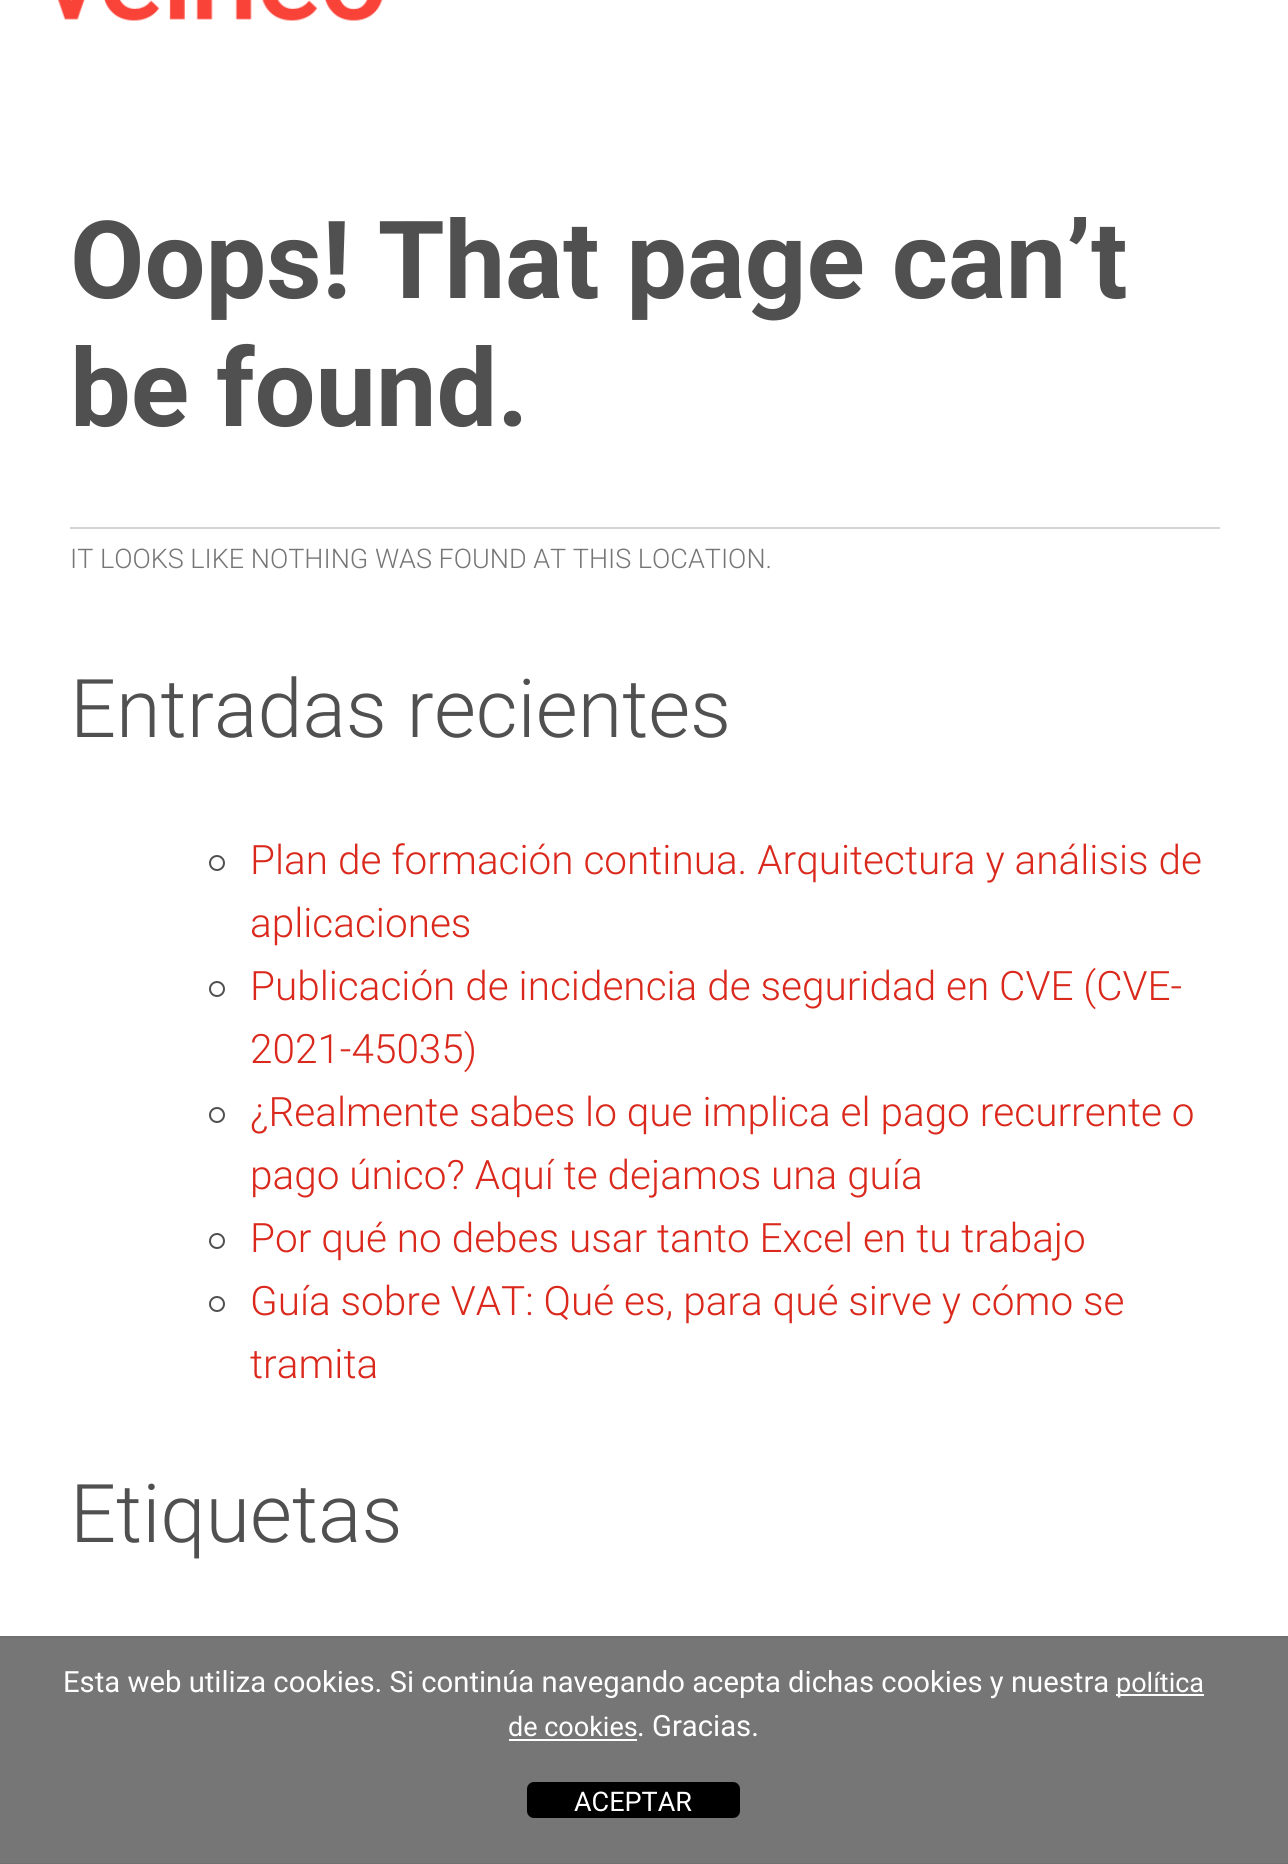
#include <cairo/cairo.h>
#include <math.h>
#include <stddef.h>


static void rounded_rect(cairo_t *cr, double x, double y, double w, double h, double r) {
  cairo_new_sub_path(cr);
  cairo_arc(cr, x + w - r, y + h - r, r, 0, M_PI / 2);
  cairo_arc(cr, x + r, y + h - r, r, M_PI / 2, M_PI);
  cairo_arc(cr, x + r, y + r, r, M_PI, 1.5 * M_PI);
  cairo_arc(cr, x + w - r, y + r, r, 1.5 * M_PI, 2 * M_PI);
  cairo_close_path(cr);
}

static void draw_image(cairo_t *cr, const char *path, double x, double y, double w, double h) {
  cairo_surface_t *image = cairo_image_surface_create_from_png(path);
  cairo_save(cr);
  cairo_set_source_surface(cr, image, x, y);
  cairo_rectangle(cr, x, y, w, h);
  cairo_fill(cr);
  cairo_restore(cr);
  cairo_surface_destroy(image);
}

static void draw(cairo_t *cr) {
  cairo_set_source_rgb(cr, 1, 1, 1);
  cairo_paint(cr);
  draw_image(cr, "images/1.png", 57, 0, 326, 21);
  cairo_set_source_rgb(cr, 211 / 255.0, 212 / 255.0, 213 / 255.0);
  cairo_rectangle(cr, 70, 527, 1150, 2);
  cairo_fill(cr);
  cairo_arc(cr, 217, 863, 7, 0, 2 * M_PI);
  cairo_set_source_rgb(cr, 80 / 255.0, 80 / 255.0, 80 / 255.0);
  cairo_stroke(cr);
  cairo_arc(cr, 217, 989, 7, 0, 2 * M_PI);
  cairo_stroke(cr);
  cairo_arc(cr, 217, 1115, 7, 0, 2 * M_PI);
  cairo_stroke(cr);
  cairo_arc(cr, 217, 1241, 7, 0, 2 * M_PI);
  cairo_stroke(cr);
  cairo_arc(cr, 217, 1304, 7, 0, 2 * M_PI);
  cairo_stroke(cr);
  cairo_set_source_rgb(cr, 118 / 255.0, 118 / 255.0, 118 / 255.0);
  cairo_rectangle(cr, 0, 1638, 1288, 225);
  cairo_fill(cr);
  cairo_set_source_rgb(cr, 112 / 255.0, 112 / 255.0, 112 / 255.0);
  cairo_rectangle(cr, 0, 1636, 1288, 2);
  cairo_fill(cr);
  cairo_rectangle(cr, 0, 1863, 1288, 1);
  cairo_fill(cr);
  cairo_set_source_rgb(cr, 1, 1, 1);
  cairo_rectangle(cr, 1116, 1694, 88, 2);
  cairo_fill(cr);
  cairo_rectangle(cr, 509, 1739, 128, 2);
  cairo_fill(cr);
  cairo_set_source_rgb(cr, 0, 0, 0);
  rounded_rect(cr, 527, 1782, 213, 36, 7);
  cairo_fill(cr);
  cairo_select_font_face(cr, "Roboto", CAIRO_FONT_SLANT_NORMAL, CAIRO_FONT_WEIGHT_BOLD);
  cairo_set_font_size(cr, 108);
  cairo_set_source_rgb(cr, 80 / 255.0, 80 / 255.0, 80 / 255.0);
  cairo_move_to(cr, 70, 298);
  cairo_show_text(cr, "Oops! That page can’t");
  cairo_move_to(cr, 70, 426);
  cairo_show_text(cr, "be found.");
  cairo_select_font_face(cr, "Roboto Light", CAIRO_FONT_SLANT_NORMAL, CAIRO_FONT_WEIGHT_NORMAL);
  cairo_set_font_size(cr, 27);
  cairo_set_source_rgb(cr, 118 / 255.0, 118 / 255.0, 118 / 255.0);
  cairo_move_to(cr, 70, 568);
  cairo_show_text(cr, "IT LOOKS LIKE NOTHING WAS FOUND AT THIS LOCATION.");
  cairo_set_font_size(cr, 81);
  cairo_set_source_rgb(cr, 80 / 255.0, 80 / 255.0, 80 / 255.0);
  cairo_move_to(cr, 70, 737);
  cairo_show_text(cr, "Entradas recientes");
  cairo_set_font_size(cr, 40.5);
  cairo_set_source_rgb(cr, 218 / 255.0, 41 / 255.0, 28 / 255.0);
  cairo_move_to(cr, 250, 874);
  cairo_show_text(cr, "Plan de formación continua. Arquitectura y análisis de");
  cairo_move_to(cr, 250, 937);
  cairo_show_text(cr, "aplicaciones");
  cairo_move_to(cr, 250, 1000);
  cairo_show_text(cr, "Publicación de incidencia de seguridad en CVE (CVE-");
  cairo_move_to(cr, 250, 1063);
  cairo_show_text(cr, "2021-45035)");
  cairo_move_to(cr, 250, 1126);
  cairo_show_text(cr, "¿Realmente sabes lo que implica el pago recurrente o");
  cairo_move_to(cr, 250, 1189);
  cairo_show_text(cr, "pago único? Aquí te dejamos una guía");
  cairo_move_to(cr, 250, 1252);
  cairo_show_text(cr, "Por qué no debes usar tanto Excel en tu trabajo");
  cairo_move_to(cr, 250, 1315);
  cairo_show_text(cr, "Guía sobre VAT: Qué es, para qué sirve y cómo se");
  cairo_move_to(cr, 250, 1378);
  cairo_show_text(cr, "tramita");
  cairo_set_font_size(cr, 81);
  cairo_set_source_rgb(cr, 80 / 255.0, 80 / 255.0, 80 / 255.0);
  cairo_move_to(cr, 70, 1542);
  cairo_show_text(cr, "Etiquetas");
  cairo_select_font_face(cr, "Roboto", CAIRO_FONT_SLANT_NORMAL, CAIRO_FONT_WEIGHT_NORMAL);
  cairo_set_font_size(cr, 29.25);
  cairo_set_source_rgb(cr, 1, 1, 1);
  cairo_move_to(cr, 63, 1692);
  cairo_show_text(cr, "Esta web utiliza cookies. Si continúa navegando acepta dichas cookies y nuestra");
  cairo_set_font_size(cr, 27);
  cairo_move_to(cr, 1116, 1692);
  cairo_show_text(cr, "política");
  cairo_move_to(cr, 508, 1736);
  cairo_show_text(cr, "de cookies");
  cairo_set_font_size(cr, 29.25);
  cairo_move_to(cr, 637, 1736);
  cairo_show_text(cr, ". Gracias.");
  cairo_set_font_size(cr, 27);
  cairo_move_to(cr, 574, 1811);
  cairo_show_text(cr, "ACEPTAR");
}

int main(void) {
  cairo_surface_t *surface = cairo_image_surface_create(CAIRO_FORMAT_RGB24, 1288, 1864);
  cairo_t *cr = cairo_create(surface);
  cairo_font_options_t *options = cairo_font_options_create();
  cairo_font_options_set_hint_metrics(options, CAIRO_HINT_METRICS_OFF);
  cairo_font_options_set_hint_style(options, CAIRO_HINT_STYLE_NONE);
  cairo_set_font_options(cr, options);
  cairo_set_miter_limit(cr, 4);
  draw(cr);
  cairo_surface_write_to_png(surface, "out.png");
  cairo_font_options_destroy(options);
  cairo_destroy(cr);
  cairo_surface_destroy(surface);
  return 0;
}
